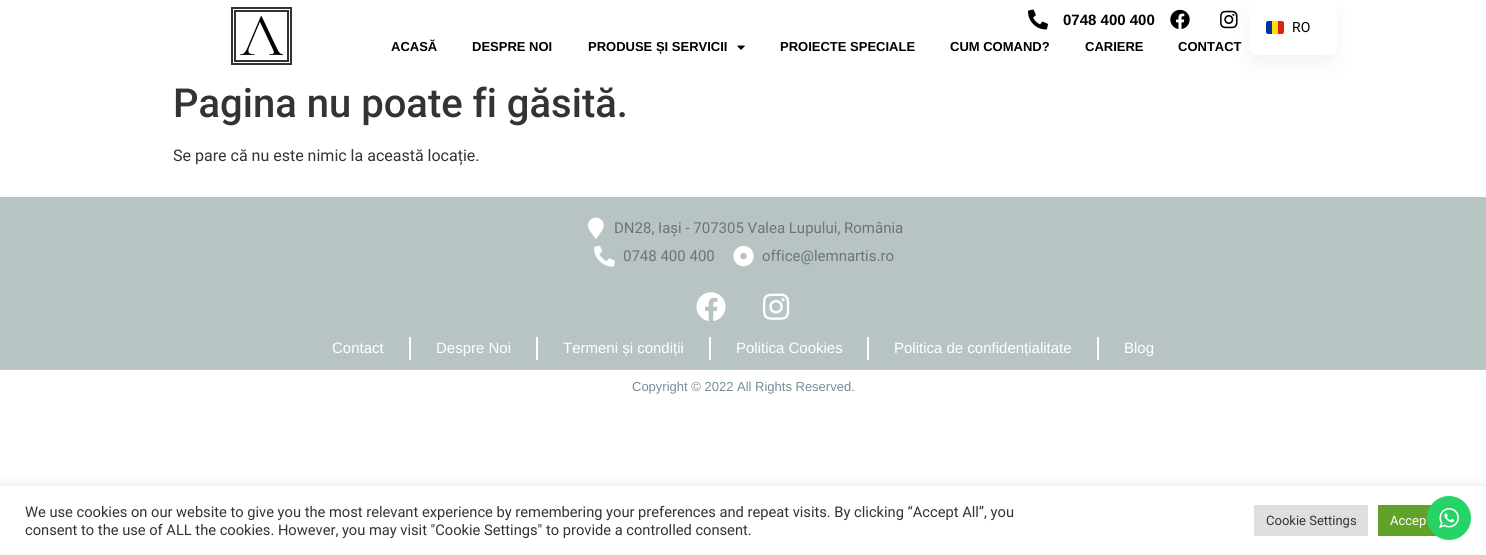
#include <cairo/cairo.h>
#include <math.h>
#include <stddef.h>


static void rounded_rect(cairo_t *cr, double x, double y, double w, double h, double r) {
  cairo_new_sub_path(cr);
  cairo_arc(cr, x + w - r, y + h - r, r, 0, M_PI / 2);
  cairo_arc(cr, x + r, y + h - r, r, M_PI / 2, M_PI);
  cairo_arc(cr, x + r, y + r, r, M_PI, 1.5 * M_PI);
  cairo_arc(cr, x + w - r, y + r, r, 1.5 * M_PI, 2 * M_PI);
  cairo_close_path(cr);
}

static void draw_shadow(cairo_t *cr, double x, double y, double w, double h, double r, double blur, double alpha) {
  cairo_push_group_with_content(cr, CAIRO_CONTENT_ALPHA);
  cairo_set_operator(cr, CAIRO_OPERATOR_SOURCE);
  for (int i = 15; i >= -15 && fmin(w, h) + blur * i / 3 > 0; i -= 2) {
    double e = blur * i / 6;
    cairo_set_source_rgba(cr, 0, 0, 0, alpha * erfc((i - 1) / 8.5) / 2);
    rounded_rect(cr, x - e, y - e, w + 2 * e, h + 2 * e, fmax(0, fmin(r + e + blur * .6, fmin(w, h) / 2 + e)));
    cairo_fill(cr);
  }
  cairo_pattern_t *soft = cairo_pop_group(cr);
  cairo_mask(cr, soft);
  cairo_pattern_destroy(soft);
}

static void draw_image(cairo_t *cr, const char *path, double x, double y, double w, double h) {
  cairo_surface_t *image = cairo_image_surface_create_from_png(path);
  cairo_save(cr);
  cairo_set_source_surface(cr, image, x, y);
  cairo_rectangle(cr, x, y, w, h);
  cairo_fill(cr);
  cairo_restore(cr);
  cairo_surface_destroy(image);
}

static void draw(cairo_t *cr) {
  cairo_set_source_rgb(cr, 1, 1, 1);
  cairo_paint(cr);
  cairo_rectangle(cr, 232, 8, 59, 56);
  cairo_set_source_rgb(cr, 51 / 255.0, 51 / 255.0, 51 / 255.0);
  cairo_stroke(cr);
  cairo_rectangle(cr, 235, 11, 53, 50);
  cairo_stroke(cr);
  draw_image(cr, "images/1.png", 240, 16, 43, 40);
  draw_image(cr, "images/2.png", 1028, 9, 20, 21);
  draw_image(cr, "images/3.png", 1170, 9, 20, 20);
  draw_image(cr, "images/4.png", 1220, 10, 18, 19);
  draw_image(cr, "images/5.png", 737, 45, 8, 5);
  cairo_save(cr);
  cairo_set_fill_rule(cr, CAIRO_FILL_RULE_EVEN_ODD);
  cairo_new_path(cr);
  cairo_move_to(cr, 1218, 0);
  cairo_line_to(cr, 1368, 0);
  cairo_line_to(cr, 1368, 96);
  cairo_line_to(cr, 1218, 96);
  cairo_close_path(cr);
  cairo_move_to(cr, 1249, 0);
  cairo_line_to(cr, 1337, 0);
  cairo_line_to(cr, 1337, 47);
  cairo_curve_to(cr, 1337, 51.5, 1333.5, 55, 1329, 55);
  cairo_line_to(cr, 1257, 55);
  cairo_curve_to(cr, 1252.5, 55, 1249, 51.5, 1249, 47);
  cairo_close_path(cr);
  cairo_clip(cr);
  cairo_set_source_rgb(cr, 0, 0, 0);
  draw_shadow(cr, 1249, 10, 88, 55, 8, 10, 0.05);
  cairo_restore(cr);
  cairo_set_source_rgb(cr, 0, 49 / 255.0, 156 / 255.0);
  cairo_new_path(cr);
  cairo_move_to(cr, 1268, 21);
  cairo_line_to(cr, 1272, 21);
  cairo_line_to(cr, 1272, 34);
  cairo_line_to(cr, 1268, 34);
  cairo_curve_to(cr, 1267, 34, 1266, 33, 1266, 32);
  cairo_line_to(cr, 1266, 23);
  cairo_curve_to(cr, 1266, 22, 1267, 21, 1268, 21);
  cairo_close_path(cr);
  cairo_fill(cr);
  cairo_set_source_rgb(cr, 1, 222 / 255.0, 0);
  cairo_rectangle(cr, 1272, 21, 6, 13);
  cairo_fill(cr);
  cairo_set_source_rgb(cr, 222 / 255.0, 33 / 255.0, 16 / 255.0);
  cairo_new_path(cr);
  cairo_move_to(cr, 1278, 21);
  cairo_line_to(cr, 1282, 21);
  cairo_curve_to(cr, 1283, 21, 1284, 22, 1284, 23);
  cairo_line_to(cr, 1284, 32);
  cairo_curve_to(cr, 1284, 33, 1283, 34, 1282, 34);
  cairo_line_to(cr, 1278, 34);
  cairo_close_path(cr);
  cairo_fill(cr);
  cairo_set_source_rgb(cr, 184 / 255.0, 196 / 255.0, 196 / 255.0);
  cairo_rectangle(cr, 0, 197, 1486, 173);
  cairo_fill(cr);
  draw_image(cr, "images/6.png", 588, 217, 16, 22);
  draw_image(cr, "images/7.png", 594, 245, 21, 22);
  draw_image(cr, "images/8.png", 733, 246, 21, 21);
  draw_image(cr, "images/9.png", 696, 292, 30, 29);
  draw_image(cr, "images/10.png", 762, 293, 28, 27);
  cairo_set_source_rgb(cr, 1, 1, 1);
  cairo_rectangle(cr, 409, 337, 2, 23);
  cairo_fill(cr);
  cairo_rectangle(cr, 536, 337, 2, 23);
  cairo_fill(cr);
  cairo_rectangle(cr, 709, 337, 2, 23);
  cairo_fill(cr);
  cairo_rectangle(cr, 867, 337, 2, 23);
  cairo_fill(cr);
  cairo_rectangle(cr, 1097, 337, 2, 23);
  cairo_fill(cr);
  cairo_save(cr);
  cairo_rectangle(cr, 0, 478, 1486, 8);
  cairo_clip(cr);
  cairo_set_source_rgb(cr, 172 / 255.0, 171 / 255.0, 171 / 255.0);
  draw_shadow(cr, 0, 485, 1486, 69, 0, 5, 0.3);
  cairo_restore(cr);
  cairo_set_source_rgb(cr, 222 / 255.0, 223 / 255.0, 224 / 255.0);
  cairo_rectangle(cr, 1254, 505, 114, 31);
  cairo_fill(cr);
  cairo_set_source_rgb(cr, 97 / 255.0, 162 / 255.0, 41 / 255.0);
  cairo_rectangle(cr, 1378, 505, 59, 31);
  cairo_fill(cr);
  cairo_set_source_rgb(cr, 37 / 255.0, 211 / 255.0, 102 / 255.0);
  cairo_arc(cr, 1449, 518, 22, 0, 2 * M_PI);
  cairo_fill(cr);
  draw_image(cr, "images/11.png", 1439, 508, 20, 20);
  cairo_select_font_face(cr, "Liberation Sans", CAIRO_FONT_SLANT_NORMAL, CAIRO_FONT_WEIGHT_BOLD);
  cairo_set_font_size(cr, 15);
  cairo_set_source_rgb(cr, 0, 0, 0);
  cairo_move_to(cr, 1063, 25);
  cairo_show_text(cr, "0748 400 400");
  cairo_set_font_size(cr, 13);
  cairo_move_to(cr, 391, 51);
  cairo_show_text(cr, "ACASĂ");
  cairo_move_to(cr, 472, 51);
  cairo_show_text(cr, "DESPRE NOI");
  cairo_move_to(cr, 588, 51);
  cairo_show_text(cr, "PRODUSE ȘI SERVICII");
  cairo_move_to(cr, 780, 51);
  cairo_show_text(cr, "PROIECTE SPECIALE");
  cairo_move_to(cr, 950, 51);
  cairo_show_text(cr, "CUM COMAND?");
  cairo_move_to(cr, 1085, 51);
  cairo_show_text(cr, "CARIERE");
  cairo_move_to(cr, 1178, 51);
  cairo_show_text(cr, "CONTACT");
  cairo_select_font_face(cr, "Roboto", CAIRO_FONT_SLANT_NORMAL, CAIRO_FONT_WEIGHT_NORMAL);
  cairo_set_font_size(cr, 14);
  cairo_move_to(cr, 1292, 32);
  cairo_show_text(cr, "RO");
  cairo_select_font_face(cr, "Roboto Medium", CAIRO_FONT_SLANT_NORMAL, CAIRO_FONT_WEIGHT_NORMAL);
  cairo_set_font_size(cr, 40);
  cairo_set_source_rgb(cr, 51 / 255.0, 51 / 255.0, 51 / 255.0);
  cairo_move_to(cr, 173, 117);
  cairo_show_text(cr, "Pagina nu poate fi găsită.");
  cairo_select_font_face(cr, "Roboto", CAIRO_FONT_SLANT_NORMAL, CAIRO_FONT_WEIGHT_NORMAL);
  cairo_set_font_size(cr, 16);
  cairo_move_to(cr, 173, 161);
  cairo_show_text(cr, "Se pare că nu este nimic la această locație.");
  cairo_set_font_size(cr, 15);
  cairo_set_source_rgb(cr, 108 / 255.0, 117 / 255.0, 118 / 255.0);
  cairo_move_to(cr, 614, 233);
  cairo_show_text(cr, "DN28, Iași - 707305 Valea Lupului, România");
  cairo_move_to(cr, 623, 261);
  cairo_show_text(cr, "0748 400 400");
  cairo_move_to(cr, 762, 261);
  cairo_show_text(cr, "office@lemnartis.ro");
  cairo_select_font_face(cr, "Liberation Sans", CAIRO_FONT_SLANT_NORMAL, CAIRO_FONT_WEIGHT_NORMAL);
  cairo_set_source_rgb(cr, 1, 1, 1);
  cairo_move_to(cr, 332, 353);
  cairo_show_text(cr, "Contact");
  cairo_move_to(cr, 436, 353);
  cairo_show_text(cr, "Despre Noi");
  cairo_move_to(cr, 563, 353);
  cairo_show_text(cr, "Termeni și condiții");
  cairo_move_to(cr, 736, 353);
  cairo_show_text(cr, "Politica Cookies");
  cairo_move_to(cr, 894, 353);
  cairo_show_text(cr, "Politica de confidențialitate");
  cairo_move_to(cr, 1124, 353);
  cairo_show_text(cr, "Blog");
  cairo_set_font_size(cr, 13);
  cairo_set_source_rgb(cr, 121 / 255.0, 139 / 255.0, 149 / 255.0);
  cairo_move_to(cr, 632, 391);
  cairo_show_text(cr, "Copyright © 2022 All Rights Reserved.");
  cairo_select_font_face(cr, "Roboto", CAIRO_FONT_SLANT_NORMAL, CAIRO_FONT_WEIGHT_NORMAL);
  cairo_set_font_size(cr, 14.67);
  cairo_set_source_rgb(cr, 51 / 255.0, 51 / 255.0, 51 / 255.0);
  cairo_move_to(cr, 25, 517);
  cairo_show_text(cr, "We use cookies on our website to give you the most relevant experience by remembering your preferences and repeat visits. By clicking “Accept All”, you");
  cairo_move_to(cr, 25, 535);
  cairo_show_text(cr, "consent to the use of ALL the cookies. However, you may visit \"Cookie Settings\" to provide a controlled consent.");
  cairo_set_font_size(cr, 13);
  cairo_move_to(cr, 1266, 525);
  cairo_show_text(cr, "Cookie Settings");
  cairo_set_source_rgb(cr, 1, 1, 1);
  cairo_move_to(cr, 1390, 525);
  cairo_show_text(cr, "Accep");
}

int main(void) {
  cairo_surface_t *surface = cairo_image_surface_create(CAIRO_FORMAT_RGB24, 1486, 555);
  cairo_t *cr = cairo_create(surface);
  cairo_font_options_t *options = cairo_font_options_create();
  cairo_font_options_set_hint_metrics(options, CAIRO_HINT_METRICS_OFF);
  cairo_font_options_set_hint_style(options, CAIRO_HINT_STYLE_NONE);
  cairo_set_font_options(cr, options);
  cairo_set_miter_limit(cr, 4);
  draw(cr);
  cairo_surface_write_to_png(surface, "out.png");
  cairo_font_options_destroy(options);
  cairo_destroy(cr);
  cairo_surface_destroy(surface);
  return 0;
}
